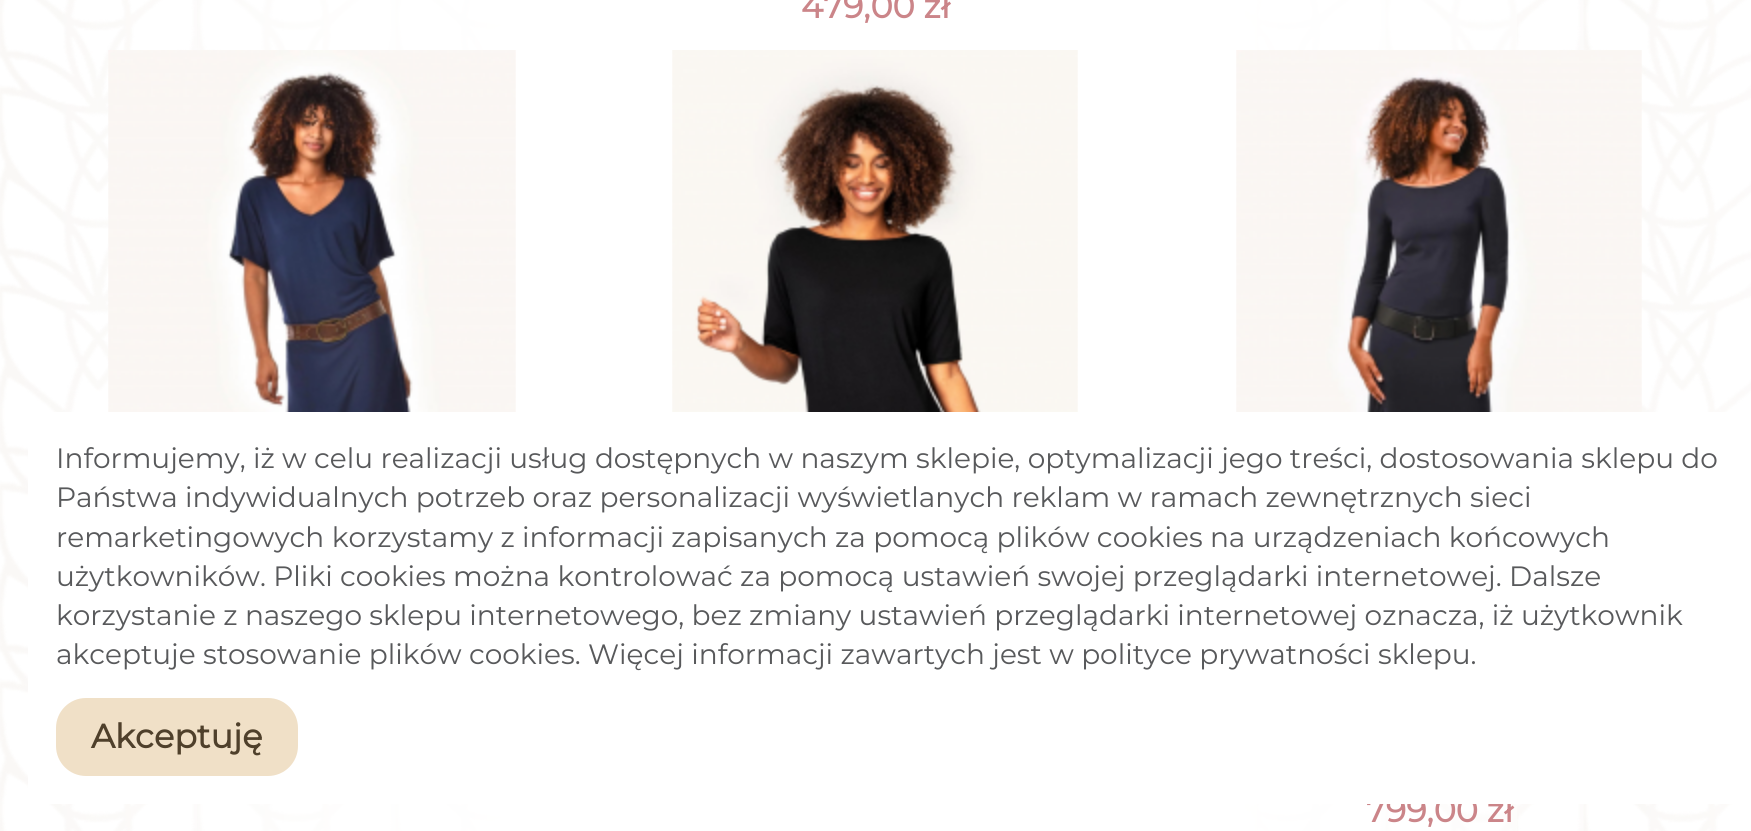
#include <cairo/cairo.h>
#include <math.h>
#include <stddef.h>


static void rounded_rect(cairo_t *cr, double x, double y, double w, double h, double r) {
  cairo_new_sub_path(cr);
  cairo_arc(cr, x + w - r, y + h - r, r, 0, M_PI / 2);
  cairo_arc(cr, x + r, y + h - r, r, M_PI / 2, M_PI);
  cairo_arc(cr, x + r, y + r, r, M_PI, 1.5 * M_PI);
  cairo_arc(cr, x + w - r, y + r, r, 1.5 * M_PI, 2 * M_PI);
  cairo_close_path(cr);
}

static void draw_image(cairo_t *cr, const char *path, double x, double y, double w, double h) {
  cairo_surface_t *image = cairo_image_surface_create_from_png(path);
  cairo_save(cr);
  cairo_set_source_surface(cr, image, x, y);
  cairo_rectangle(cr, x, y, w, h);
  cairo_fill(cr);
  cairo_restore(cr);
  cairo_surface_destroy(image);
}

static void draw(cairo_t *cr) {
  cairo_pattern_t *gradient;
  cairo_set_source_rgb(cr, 1, 1, 1);
  cairo_paint(cr);
  draw_image(cr, "images/1.png", 0, 0, 1751, 831);
  gradient = cairo_pattern_create_linear(30, -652, 1722, -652);
  cairo_pattern_add_color_stop_rgba(gradient, 0, 1, 1, 1, 0);
  cairo_pattern_add_color_stop_rgba(gradient, 0.3, 1, 1, 1, 1);
  cairo_pattern_add_color_stop_rgba(gradient, 0.7, 1, 1, 1, 1);
  cairo_pattern_add_color_stop_rgba(gradient, 1, 1, 1, 1, 0);
  cairo_set_source(cr, gradient);
  cairo_pattern_destroy(gradient);
  cairo_rectangle(cr, 198, 0, 1319, 831);
  cairo_fill(cr);
  draw_image(cr, "images/2.png", 108, 50, 408, 362);
  draw_image(cr, "images/3.png", 672, 50, 406, 362);
  draw_image(cr, "images/4.png", 1236, 50, 406, 362);
  cairo_select_font_face(cr, "Montserrat", CAIRO_FONT_SLANT_NORMAL, CAIRO_FONT_WEIGHT_BOLD);
  cairo_set_font_size(cr, 33.5);
  cairo_set_source_rgb(cr, 203 / 255.0, 133 / 255.0, 137 / 255.0);
  cairo_move_to(cr, 801, 18);
  cairo_show_text(cr, "479,00 zł");
  cairo_move_to(cr, 1366, 822);
  cairo_show_text(cr, "799,00 zł");
  cairo_set_source_rgb(cr, 1, 1, 1);
  cairo_rectangle(cr, 28, 412, 1723, 392);
  cairo_fill(cr);
  cairo_select_font_face(cr, "Montserrat Thin", CAIRO_FONT_SLANT_NORMAL, CAIRO_FONT_WEIGHT_NORMAL);
  cairo_set_font_size(cr, 28);
  cairo_set_source_rgb(cr, 88 / 255.0, 89 / 255.0, 91 / 255.0);
  cairo_move_to(cr, 56, 468);
  cairo_show_text(cr, "Informujemy, iż w celu realizacji usług dostępnych w naszym sklepie, optymalizacji jego treści, dostosowania sklepu do");
  cairo_move_to(cr, 56, 507);
  cairo_show_text(cr, "Państwa indywidualnych potrzeb oraz personalizacji wyświetlanych reklam w ramach zewnętrznych sieci");
  cairo_move_to(cr, 56, 547);
  cairo_show_text(cr, "remarketingowych korzystamy z informacji zapisanych za pomocą plików cookies na urządzeniach końcowych");
  cairo_move_to(cr, 56, 586);
  cairo_show_text(cr, "użytkowników. Pliki cookies można kontrolować za pomocą ustawień swojej przeglądarki internetowej. Dalsze");
  cairo_move_to(cr, 56, 625);
  cairo_show_text(cr, "korzystanie z naszego sklepu internetowego, bez zmiany ustawień przeglądarki internetowej oznacza, iż użytkownik");
  cairo_move_to(cr, 56, 664);
  cairo_show_text(cr, "akceptuje stosowanie plików cookies. Więcej informacji zawartych jest w polityce prywatności sklepu.");
  cairo_set_source_rgb(cr, 240 / 255.0, 224 / 255.0, 199 / 255.0);
  rounded_rect(cr, 56, 698, 242, 78, 30);
  cairo_fill(cr);
  cairo_select_font_face(cr, "Montserrat", CAIRO_FONT_SLANT_NORMAL, CAIRO_FONT_WEIGHT_BOLD);
  cairo_set_font_size(cr, 33.5);
  cairo_set_source_rgb(cr, 79 / 255.0, 64 / 255.0, 43 / 255.0);
  cairo_move_to(cr, 91, 748);
  cairo_show_text(cr, "Akceptuję");
}

int main(void) {
  cairo_surface_t *surface = cairo_image_surface_create(CAIRO_FORMAT_RGB24, 1751, 831);
  cairo_t *cr = cairo_create(surface);
  cairo_font_options_t *options = cairo_font_options_create();
  cairo_font_options_set_hint_metrics(options, CAIRO_HINT_METRICS_OFF);
  cairo_font_options_set_hint_style(options, CAIRO_HINT_STYLE_NONE);
  cairo_set_font_options(cr, options);
  cairo_set_miter_limit(cr, 4);
  draw(cr);
  cairo_surface_write_to_png(surface, "out.png");
  cairo_font_options_destroy(options);
  cairo_destroy(cr);
  cairo_surface_destroy(surface);
  return 0;
}
